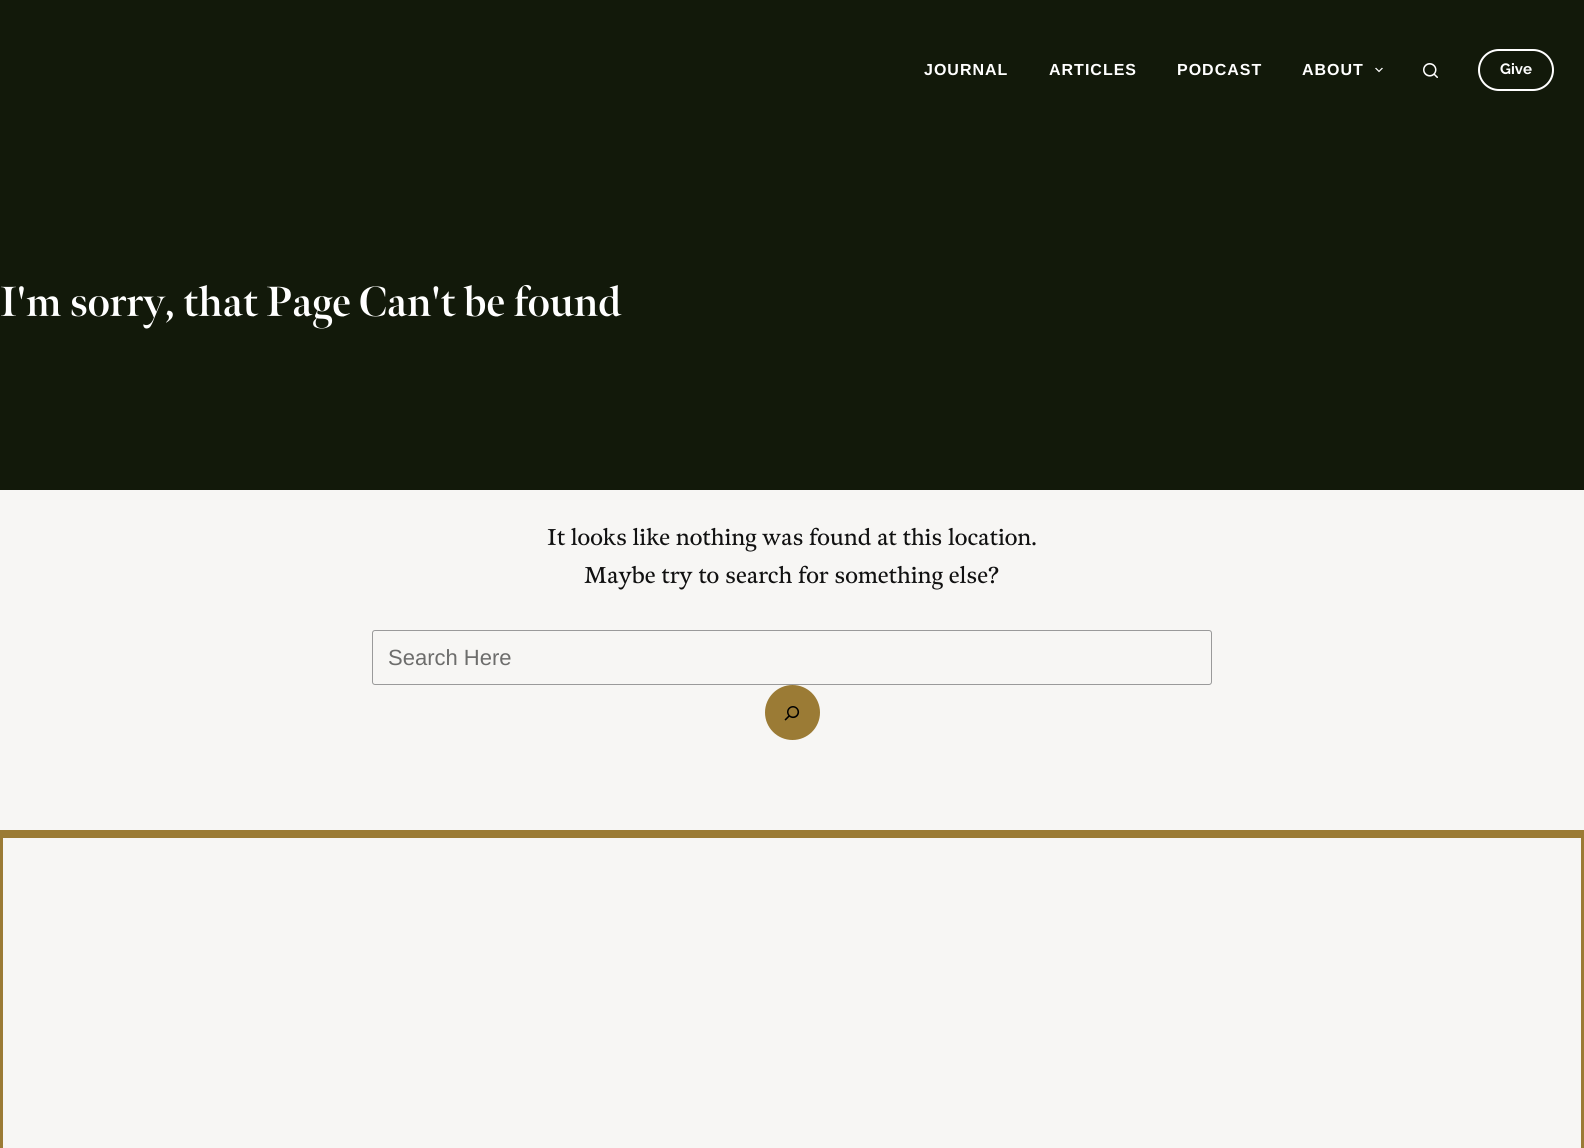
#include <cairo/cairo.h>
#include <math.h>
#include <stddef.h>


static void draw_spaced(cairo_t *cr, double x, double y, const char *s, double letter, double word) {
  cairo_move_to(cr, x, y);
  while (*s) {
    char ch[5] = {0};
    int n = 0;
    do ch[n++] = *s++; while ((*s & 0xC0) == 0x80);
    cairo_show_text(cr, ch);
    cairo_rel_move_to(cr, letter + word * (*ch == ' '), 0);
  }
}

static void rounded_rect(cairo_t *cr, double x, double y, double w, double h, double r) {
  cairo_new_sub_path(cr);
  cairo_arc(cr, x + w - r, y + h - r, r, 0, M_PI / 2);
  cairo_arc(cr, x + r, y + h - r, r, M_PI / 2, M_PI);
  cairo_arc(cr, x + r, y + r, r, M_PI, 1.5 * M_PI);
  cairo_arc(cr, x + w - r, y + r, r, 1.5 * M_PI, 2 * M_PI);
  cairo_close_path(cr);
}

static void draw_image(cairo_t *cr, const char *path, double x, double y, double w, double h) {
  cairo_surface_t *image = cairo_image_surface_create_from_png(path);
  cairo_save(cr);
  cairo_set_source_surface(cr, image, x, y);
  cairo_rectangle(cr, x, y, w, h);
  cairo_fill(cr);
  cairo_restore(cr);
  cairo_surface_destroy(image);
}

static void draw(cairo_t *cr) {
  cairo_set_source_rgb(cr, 247 / 255.0, 246 / 255.0, 244 / 255.0);
  cairo_paint(cr);
  cairo_set_source_rgb(cr, 18 / 255.0, 25 / 255.0, 10 / 255.0);
  cairo_rectangle(cr, 0, 0, 1584, 490);
  cairo_fill(cr);
  draw_image(cr, "images/1.png", 1375, 67, 8, 6);
  draw_image(cr, "images/2.png", 1423, 63, 15, 15);
  rounded_rect(cr, 1479, 50, 74, 40, 20);
  cairo_set_source_rgb(cr, 1, 1, 1);
  cairo_stroke(cr);
  rounded_rect(cr, 372.5, 630.5, 839, 54, 2.5);
  cairo_set_source_rgb(cr, 154 / 255.0, 154 / 255.0, 154 / 255.0);
  cairo_set_line_width(cr, 1);
  cairo_stroke(cr);
  cairo_set_source_rgb(cr, 155 / 255.0, 123 / 255.0, 53 / 255.0);
  cairo_arc(cr, 792.5, 712.5, 27.5, 0, 2 * M_PI);
  cairo_fill(cr);
  draw_image(cr, "images/3.png", 784, 706, 16, 15);
  cairo_rectangle(cr, 0, 830, 1584, 8);
  cairo_fill(cr);
  cairo_rectangle(cr, 1581, 830, 3, 318);
  cairo_fill(cr);
  cairo_rectangle(cr, 0, 830, 3, 318);
  cairo_fill(cr);
  cairo_select_font_face(cr, "Liberation Sans", CAIRO_FONT_SLANT_NORMAL, CAIRO_FONT_WEIGHT_BOLD);
  cairo_set_font_size(cr, 16);
  cairo_set_source_rgb(cr, 1, 1, 1);
  draw_spaced(cr, 924, 75, "JOURNAL", 1, 0);
  draw_spaced(cr, 1049, 75, "ARTICLES", 1, 0);
  draw_spaced(cr, 1177, 75, "PODCAST", 1, 0);
  draw_spaced(cr, 1302, 75, "ABOUT", 1, 0);
  cairo_select_font_face(cr, "Raleway Thin", CAIRO_FONT_SLANT_NORMAL, CAIRO_FONT_WEIGHT_NORMAL);
  cairo_set_font_size(cr, 15);
  cairo_move_to(cr, 1500, 74);
  cairo_show_text(cr, "Give");
  cairo_select_font_face(cr, "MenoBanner", CAIRO_FONT_SLANT_NORMAL, CAIRO_FONT_WEIGHT_BOLD);
  cairo_set_font_size(cr, 42);
  cairo_move_to(cr, 0, 316);
  cairo_show_text(cr, "I'm sorry, that Page Can't be found");
  cairo_select_font_face(cr, "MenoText", CAIRO_FONT_SLANT_NORMAL, CAIRO_FONT_WEIGHT_NORMAL);
  cairo_set_font_size(cr, 23);
  cairo_set_source_rgb(cr, 17 / 255.0, 17 / 255.0, 17 / 255.0);
  cairo_move_to(cr, 547, 545);
  cairo_show_text(cr, "It looks like nothing was found at this location.");
  cairo_move_to(cr, 584, 583);
  cairo_show_text(cr, "Maybe try to search for something else?");
  cairo_select_font_face(cr, "Liberation Sans", CAIRO_FONT_SLANT_NORMAL, CAIRO_FONT_WEIGHT_NORMAL);
  cairo_set_font_size(cr, 22);
  cairo_set_source_rgb(cr, 109 / 255.0, 109 / 255.0, 108 / 255.0);
  cairo_move_to(cr, 388, 665);
  cairo_show_text(cr, "Search Here");
}

int main(void) {
  cairo_surface_t *surface = cairo_image_surface_create(CAIRO_FORMAT_RGB24, 1584, 1148);
  cairo_t *cr = cairo_create(surface);
  cairo_font_options_t *options = cairo_font_options_create();
  cairo_font_options_set_hint_metrics(options, CAIRO_HINT_METRICS_OFF);
  cairo_font_options_set_hint_style(options, CAIRO_HINT_STYLE_NONE);
  cairo_set_font_options(cr, options);
  cairo_set_miter_limit(cr, 4);
  draw(cr);
  cairo_surface_write_to_png(surface, "out.png");
  cairo_font_options_destroy(options);
  cairo_destroy(cr);
  cairo_surface_destroy(surface);
  return 0;
}
